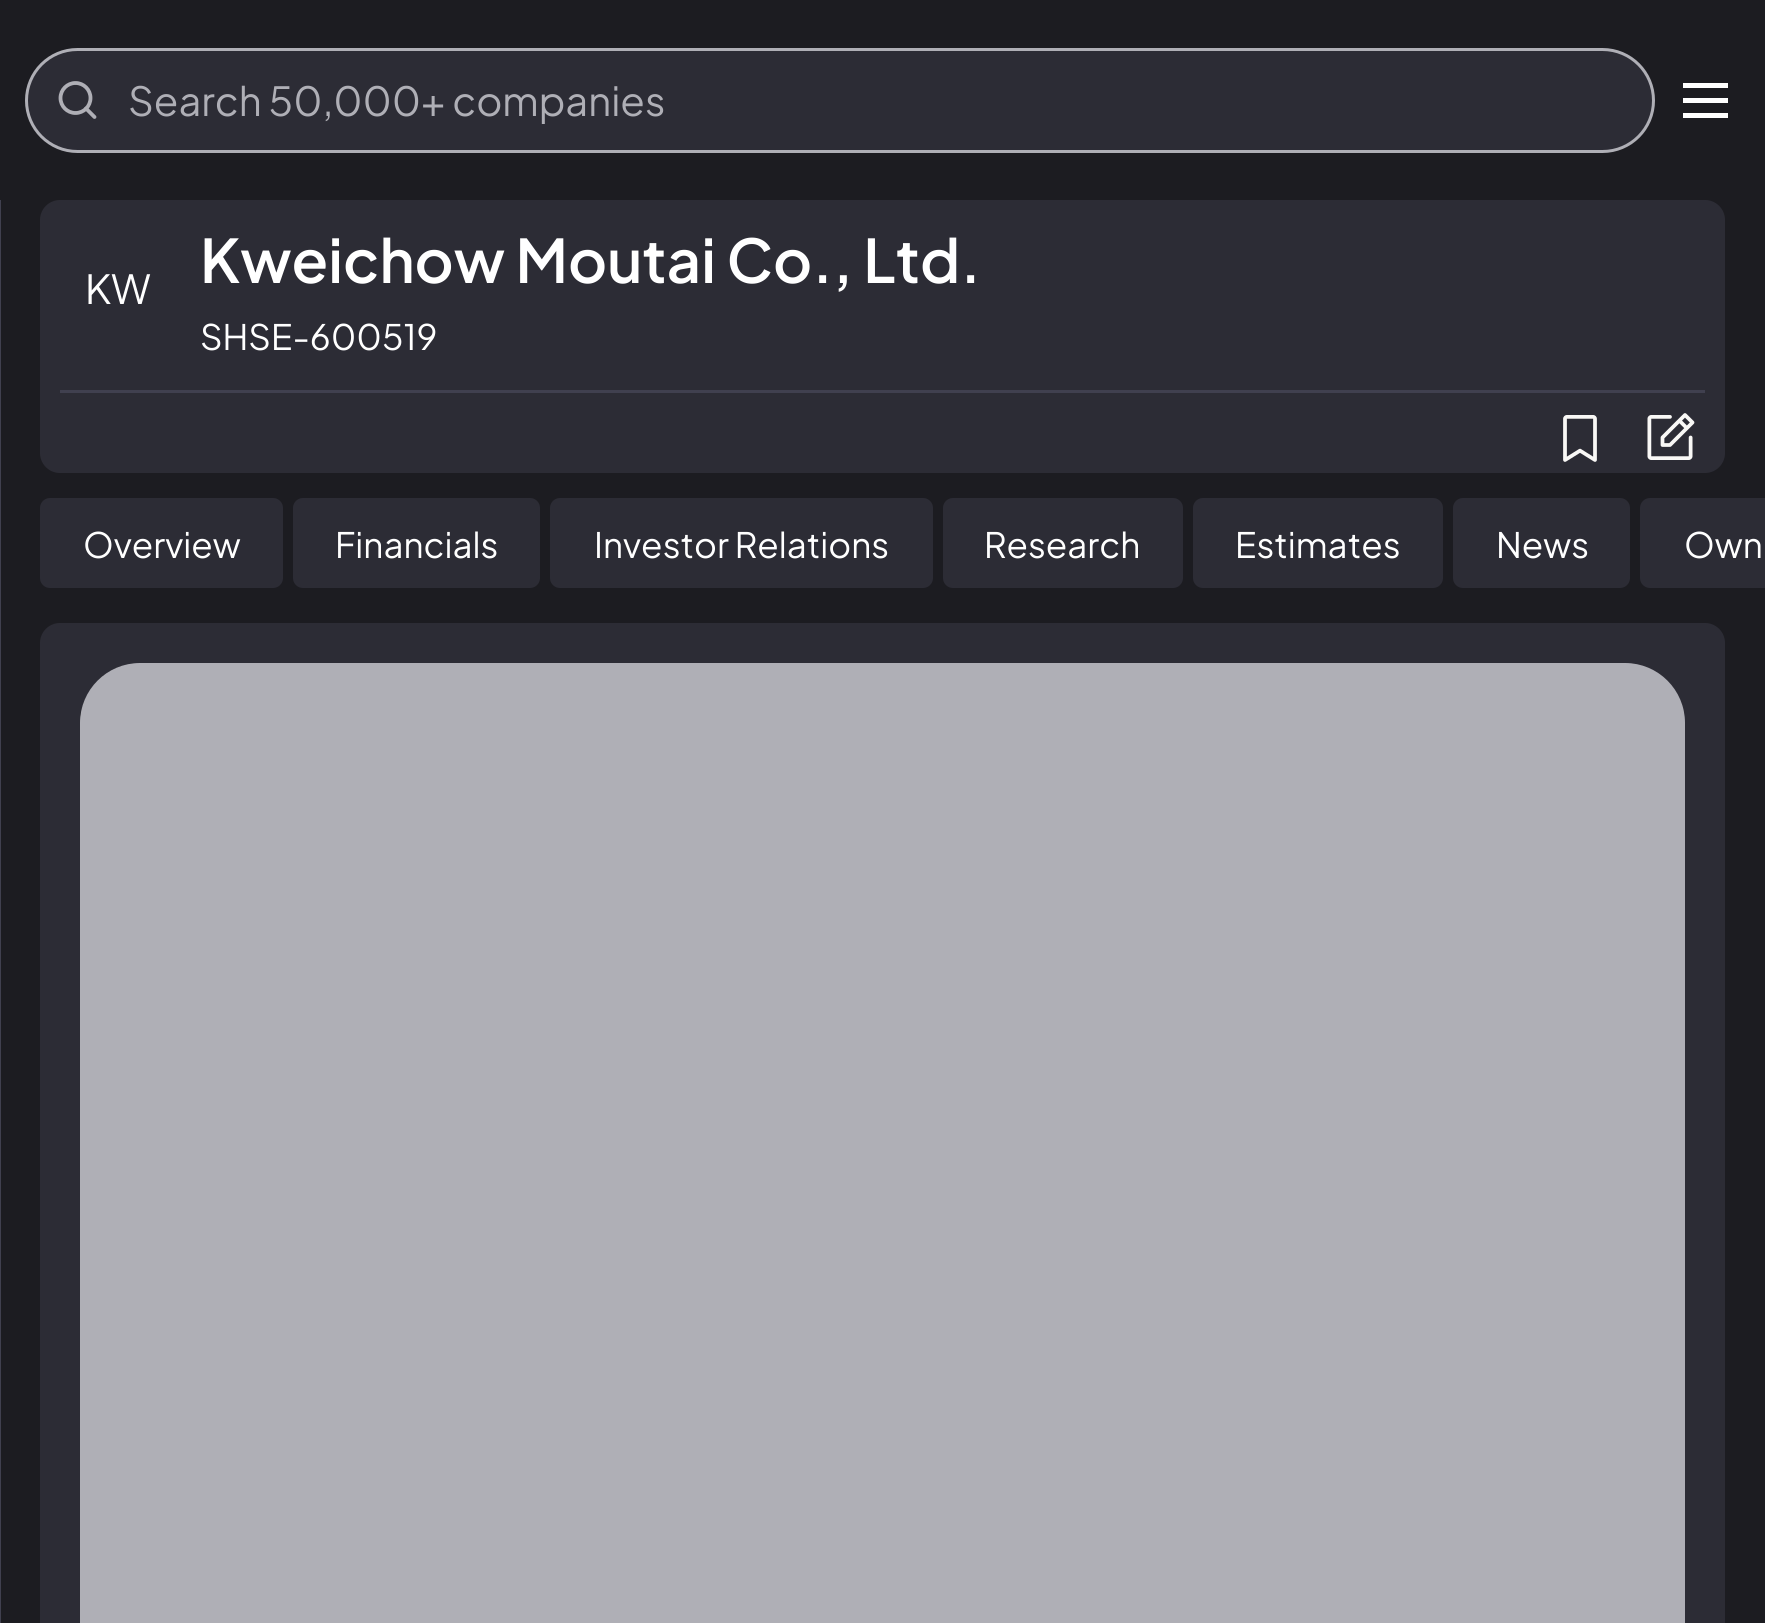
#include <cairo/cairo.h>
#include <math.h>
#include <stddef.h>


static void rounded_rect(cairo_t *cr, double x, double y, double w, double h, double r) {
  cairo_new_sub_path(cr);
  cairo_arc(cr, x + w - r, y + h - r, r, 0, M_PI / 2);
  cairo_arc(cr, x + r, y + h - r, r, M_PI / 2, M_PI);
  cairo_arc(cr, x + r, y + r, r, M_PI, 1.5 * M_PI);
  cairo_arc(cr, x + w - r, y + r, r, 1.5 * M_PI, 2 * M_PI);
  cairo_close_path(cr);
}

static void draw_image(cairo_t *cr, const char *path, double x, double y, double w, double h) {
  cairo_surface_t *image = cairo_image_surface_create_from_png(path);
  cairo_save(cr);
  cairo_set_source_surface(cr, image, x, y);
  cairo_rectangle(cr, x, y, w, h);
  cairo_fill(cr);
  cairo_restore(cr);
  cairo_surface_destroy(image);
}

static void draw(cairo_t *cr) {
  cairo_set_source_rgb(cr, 28 / 255.0, 28 / 255.0, 33 / 255.0);
  cairo_paint(cr);
  cairo_set_source_rgb(cr, 44 / 255.0, 44 / 255.0, 53 / 255.0);
  rounded_rect(cr, 26.5, 49.5, 1627, 102, 51);
  cairo_fill_preserve(cr);
  cairo_set_source_rgb(cr, 175 / 255.0, 175 / 255.0, 182 / 255.0);
  cairo_set_line_width(cr, 3);
  cairo_stroke(cr);
  cairo_arc(cr, 75.5, 98, 15, 0, 2 * M_PI);
  cairo_set_line_width(cr, 3.8);
  cairo_stroke(cr);
  cairo_new_path(cr);
  cairo_move_to(cr, 94.5, 117);
  cairo_line_to(cr, 86, 108.5);
  cairo_set_line_cap(cr, CAIRO_LINE_CAP_ROUND);
  cairo_set_line_join(cr, CAIRO_LINE_JOIN_ROUND);
  cairo_stroke(cr);
  cairo_set_source_rgb(cr, 1, 1, 1);
  cairo_rectangle(cr, 1683, 98, 45, 5);
  cairo_fill(cr);
  cairo_rectangle(cr, 1683, 83, 45, 5);
  cairo_fill(cr);
  cairo_rectangle(cr, 1683, 113, 45, 5);
  cairo_fill(cr);
  cairo_set_source_rgb(cr, 64 / 255.0, 64 / 255.0, 79 / 255.0);
  cairo_rectangle(cr, 0, 200, 1, 1423);
  cairo_fill(cr);
  cairo_set_source_rgb(cr, 44 / 255.0, 44 / 255.0, 53 / 255.0);
  rounded_rect(cr, 40, 200, 1685, 273, 20);
  cairo_fill(cr);
  cairo_set_source_rgb(cr, 64 / 255.0, 64 / 255.0, 79 / 255.0);
  cairo_rectangle(cr, 60, 390, 1645, 3);
  cairo_fill(cr);
  draw_image(cr, "images/1.png", 1563, 415, 34, 47);
  draw_image(cr, "images/2.png", 1647, 413, 48, 47);
  cairo_set_source_rgb(cr, 44 / 255.0, 44 / 255.0, 53 / 255.0);
  rounded_rect(cr, 40, 498, 243, 90, 10);
  cairo_fill(cr);
  rounded_rect(cr, 293, 498, 247, 90, 10);
  cairo_fill(cr);
  rounded_rect(cr, 550, 498, 383, 90, 10);
  cairo_fill(cr);
  rounded_rect(cr, 943, 498, 240, 90, 10);
  cairo_fill(cr);
  rounded_rect(cr, 1193, 498, 250, 90, 10);
  cairo_fill(cr);
  rounded_rect(cr, 1453, 498, 177, 90, 10);
  cairo_fill(cr);
  cairo_new_path(cr);
  cairo_move_to(cr, 1650, 498);
  cairo_line_to(cr, 1765, 498);
  cairo_line_to(cr, 1765, 588);
  cairo_line_to(cr, 1650, 588);
  cairo_curve_to(cr, 1644.5, 588, 1640, 583.5, 1640, 578);
  cairo_line_to(cr, 1640, 508);
  cairo_curve_to(cr, 1640, 502.5, 1644.5, 498, 1650, 498);
  cairo_close_path(cr);
  cairo_fill(cr);
  rounded_rect(cr, 40, 623, 1685, 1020, 20);
  cairo_fill(cr);
  cairo_set_source_rgb(cr, 28 / 255.0, 28 / 255.0, 33 / 255.0);
  cairo_new_path(cr);
  cairo_move_to(cr, 140, 663);
  cairo_line_to(cr, 1570, 663);
  cairo_curve_to(cr, 1595, 663, 1615, 683, 1615, 708);
  cairo_curve_to(cr, 1615, 733, 1595, 753, 1570, 753);
  cairo_line_to(cr, 125, 753);
  cairo_curve_to(cr, 100, 753, 80, 733, 80, 708);
  cairo_line_to(cr, 80, 723);
  cairo_curve_to(cr, 80, 690, 107, 663, 140, 663);
  cairo_close_path(cr);
  cairo_fill(cr);
  cairo_set_source_rgb(cr, 175 / 255.0, 175 / 255.0, 182 / 255.0);
  rounded_rect(cr, 80, 663, 1605, 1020, 60);
  cairo_fill(cr);
  cairo_select_font_face(cr, "Plus Jakarta Sans", CAIRO_FONT_SLANT_NORMAL, CAIRO_FONT_WEIGHT_NORMAL);
  cairo_set_font_size(cr, 40);
  cairo_move_to(cr, 128, 116);
  cairo_show_text(cr, "Search 50,000+ companies");
  cairo_set_source_rgb(cr, 1, 1, 1);
  cairo_move_to(cr, 85, 304);
  cairo_show_text(cr, "KW");
  cairo_select_font_face(cr, "Plus Jakarta Sans SemiBold", CAIRO_FONT_SLANT_NORMAL, CAIRO_FONT_WEIGHT_NORMAL);
  cairo_set_font_size(cr, 60);
  cairo_move_to(cr, 200, 283);
  cairo_show_text(cr, "Kweichow Moutai Co., Ltd.");
  cairo_select_font_face(cr, "Plus Jakarta Sans", CAIRO_FONT_SLANT_NORMAL, CAIRO_FONT_WEIGHT_NORMAL);
  cairo_set_font_size(cr, 35);
  cairo_move_to(cr, 200, 350);
  cairo_show_text(cr, "SHSE-600519");
  cairo_move_to(cr, 83, 558);
  cairo_show_text(cr, "Overview");
  cairo_move_to(cr, 335, 558);
  cairo_show_text(cr, "Financials");
  cairo_move_to(cr, 594, 558);
  cairo_show_text(cr, "Investor Relations");
  cairo_move_to(cr, 984, 558);
  cairo_show_text(cr, "Research");
  cairo_move_to(cr, 1235, 558);
  cairo_show_text(cr, "Estimates");
  cairo_move_to(cr, 1496, 558);
  cairo_show_text(cr, "News");
  cairo_move_to(cr, 1684, 558);
  cairo_show_text(cr, "Own");
}

int main(void) {
  cairo_surface_t *surface = cairo_image_surface_create(CAIRO_FORMAT_RGB24, 1765, 1623);
  cairo_t *cr = cairo_create(surface);
  cairo_font_options_t *options = cairo_font_options_create();
  cairo_font_options_set_hint_metrics(options, CAIRO_HINT_METRICS_OFF);
  cairo_font_options_set_hint_style(options, CAIRO_HINT_STYLE_NONE);
  cairo_set_font_options(cr, options);
  cairo_set_miter_limit(cr, 4);
  draw(cr);
  cairo_surface_write_to_png(surface, "out.png");
  cairo_font_options_destroy(options);
  cairo_destroy(cr);
  cairo_surface_destroy(surface);
  return 0;
}
